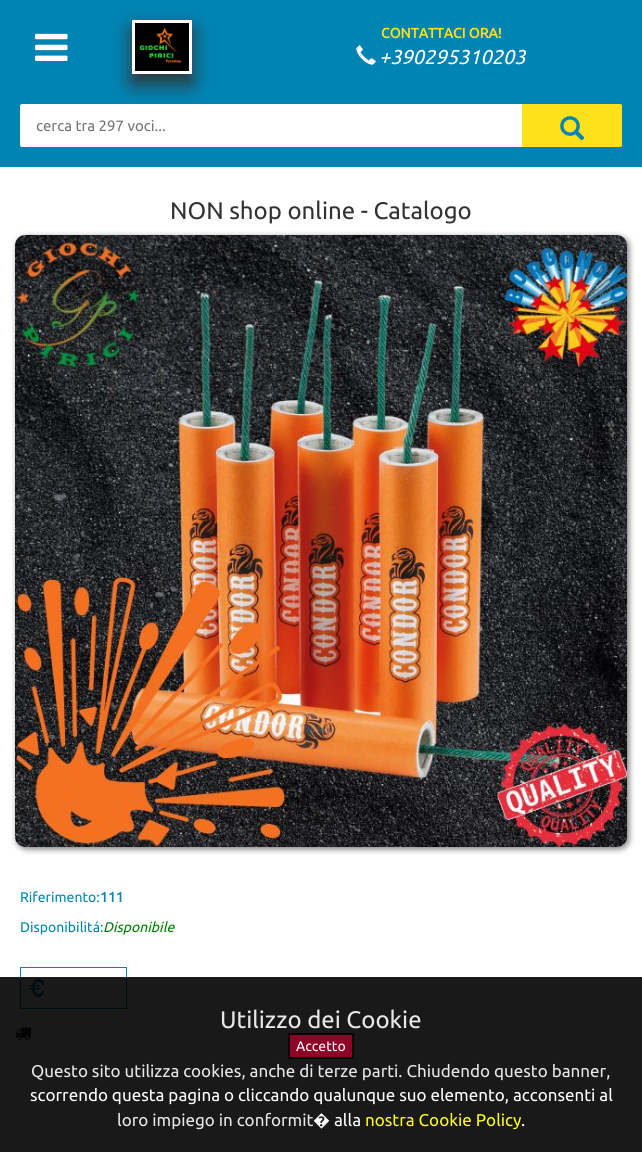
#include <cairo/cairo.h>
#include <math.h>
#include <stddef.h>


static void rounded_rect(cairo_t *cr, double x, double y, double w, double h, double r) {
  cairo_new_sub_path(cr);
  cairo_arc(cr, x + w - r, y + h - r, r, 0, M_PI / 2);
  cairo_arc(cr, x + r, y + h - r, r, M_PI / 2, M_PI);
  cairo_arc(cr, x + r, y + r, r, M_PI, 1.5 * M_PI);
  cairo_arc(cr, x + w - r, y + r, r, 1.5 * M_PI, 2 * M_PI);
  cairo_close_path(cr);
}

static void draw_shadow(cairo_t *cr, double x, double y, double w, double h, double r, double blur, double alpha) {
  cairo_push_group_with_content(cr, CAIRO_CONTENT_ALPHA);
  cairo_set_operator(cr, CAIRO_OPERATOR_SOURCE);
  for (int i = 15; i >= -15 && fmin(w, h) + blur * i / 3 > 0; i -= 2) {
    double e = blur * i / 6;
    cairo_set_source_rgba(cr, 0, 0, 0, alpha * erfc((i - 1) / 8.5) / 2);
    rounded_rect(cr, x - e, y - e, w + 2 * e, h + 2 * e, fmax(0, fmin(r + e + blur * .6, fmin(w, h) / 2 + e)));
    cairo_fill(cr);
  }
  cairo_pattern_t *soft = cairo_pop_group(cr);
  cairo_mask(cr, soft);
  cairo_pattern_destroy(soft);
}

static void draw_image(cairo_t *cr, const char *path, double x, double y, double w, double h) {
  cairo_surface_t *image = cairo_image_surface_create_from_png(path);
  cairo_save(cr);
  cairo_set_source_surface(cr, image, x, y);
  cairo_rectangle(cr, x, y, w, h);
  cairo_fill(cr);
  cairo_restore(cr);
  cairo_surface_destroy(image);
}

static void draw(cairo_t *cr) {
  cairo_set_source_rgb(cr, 1, 1, 1);
  cairo_paint(cr);
  cairo_set_source_rgb(cr, 0, 132 / 255.0, 180 / 255.0);
  cairo_rectangle(cr, 0, 0, 642, 167);
  cairo_fill(cr);
  draw_image(cr, "images/1.png", 35, 33, 33, 28);
  cairo_set_source_rgb(cr, 51 / 255.0, 51 / 255.0, 51 / 255.0);
  draw_shadow(cr, 132, 30, 60, 54, 0, 10, 1);
  cairo_set_source_rgb(cr, 1, 1, 1);
  cairo_rectangle(cr, 132, 20, 60, 54);
  cairo_fill(cr);
  draw_image(cr, "images/2.png", 135, 23, 54, 48);
  draw_image(cr, "images/3.png", 356, 45, 20, 20);
  cairo_new_path(cr);
  cairo_move_to(cr, 22, 104);
  cairo_line_to(cr, 522, 104);
  cairo_line_to(cr, 522, 147);
  cairo_line_to(cr, 22, 147);
  cairo_curve_to(cr, 21, 147, 20, 146, 20, 145);
  cairo_line_to(cr, 20, 106);
  cairo_curve_to(cr, 20, 105, 21, 104, 22, 104);
  cairo_close_path(cr);
  cairo_fill(cr);
  cairo_set_source_rgb(cr, 1, 225 / 255.0, 27 / 255.0);
  cairo_new_path(cr);
  cairo_move_to(cr, 522.5, 104.5);
  cairo_line_to(cr, 620, 104.5);
  cairo_curve_to(cr, 621, 104.5, 621.5, 105, 621.5, 106);
  cairo_line_to(cr, 621.5, 145);
  cairo_curve_to(cr, 621.5, 146, 621, 146.5, 620, 146.5);
  cairo_line_to(cr, 522.5, 146.5);
  cairo_close_path(cr);
  cairo_fill_preserve(cr);
  cairo_set_line_width(cr, 1);
  cairo_stroke(cr);
  draw_image(cr, "images/4.png", 560, 116, 25, 25);
  draw_image(cr, "images/5.png", 11, 231, 624, 624);
  cairo_rectangle(cr, 20.5, 967.5, 106, 41);
  cairo_set_source_rgb(cr, 0, 132 / 255.0, 180 / 255.0);
  cairo_stroke(cr);
  draw_image(cr, "images/6.png", 28, 979, 17, 18);
  draw_image(cr, "images/7.png", 15, 1027, 16, 14);
  cairo_set_source_rgba(cr, 0, 0, 0, 0.9);
  cairo_rectangle(cr, 0, 977, 642, 175);
  cairo_fill(cr);
  cairo_set_source_rgba(cr, 157 / 255.0, 0, 43 / 255.0, 0.9);
  cairo_rectangle(cr, 288, 1033, 66, 26);
  cairo_fill(cr);
  cairo_rectangle(cr, 289, 1034, 64, 24);
  cairo_set_source_rgba(cr, 0, 0, 0, 0.9);
  cairo_set_line_width(cr, 2);
  cairo_stroke(cr);
  cairo_select_font_face(cr, "Ubuntu", CAIRO_FONT_SLANT_NORMAL, CAIRO_FONT_WEIGHT_BOLD);
  cairo_set_font_size(cr, 14);
  cairo_set_source_rgb(cr, 1, 225 / 255.0, 27 / 255.0);
  cairo_move_to(cr, 381, 38);
  cairo_show_text(cr, "CONTATTACI ORA!");
  cairo_select_font_face(cr, "Ubuntu", CAIRO_FONT_SLANT_ITALIC, CAIRO_FONT_WEIGHT_NORMAL);
  cairo_set_font_size(cr, 20);
  cairo_set_source_rgb(cr, 1, 1, 1);
  cairo_move_to(cr, 379, 64);
  cairo_show_text(cr, "+390295310203");
  cairo_select_font_face(cr, "Ubuntu", CAIRO_FONT_SLANT_NORMAL, CAIRO_FONT_WEIGHT_NORMAL);
  cairo_set_font_size(cr, 15);
  cairo_set_source_rgb(cr, 117 / 255.0, 117 / 255.0, 117 / 255.0);
  cairo_move_to(cr, 36, 131);
  cairo_show_text(cr, "cerca tra 297 voci...");
  cairo_set_font_size(cr, 24);
  cairo_set_source_rgb(cr, 51 / 255.0, 51 / 255.0, 51 / 255.0);
  cairo_move_to(cr, 170, 219);
  cairo_show_text(cr, "NON shop online - Catalogo");
  cairo_set_font_size(cr, 14);
  cairo_set_source_rgb(cr, 0, 132 / 255.0, 180 / 255.0);
  cairo_move_to(cr, 20, 902);
  cairo_show_text(cr, "Riferimento:");
  cairo_select_font_face(cr, "Ubuntu", CAIRO_FONT_SLANT_NORMAL, CAIRO_FONT_WEIGHT_BOLD);
  cairo_move_to(cr, 100, 902);
  cairo_show_text(cr, "111");
  cairo_select_font_face(cr, "Ubuntu", CAIRO_FONT_SLANT_NORMAL, CAIRO_FONT_WEIGHT_NORMAL);
  cairo_move_to(cr, 20, 932);
  cairo_show_text(cr, "Disponibilitá:");
  cairo_select_font_face(cr, "Ubuntu", CAIRO_FONT_SLANT_ITALIC, CAIRO_FONT_WEIGHT_NORMAL);
  cairo_set_source_rgb(cr, 0, 128 / 255.0, 0);
  cairo_move_to(cr, 103, 932);
  cairo_show_text(cr, "Disponibile");
  cairo_select_font_face(cr, "Ubuntu", CAIRO_FONT_SLANT_NORMAL, CAIRO_FONT_WEIGHT_NORMAL);
  cairo_set_font_size(cr, 24);
  cairo_set_source_rgb(cr, 232 / 255.0, 232 / 255.0, 232 / 255.0);
  cairo_move_to(cr, 220, 1028);
  cairo_show_text(cr, "Utilizzo dei Cookie");
  cairo_set_font_size(cr, 14);
  cairo_set_source_rgb(cr, 1, 1, 1);
  cairo_move_to(cr, 296, 1051);
  cairo_show_text(cr, "Accetto");
  cairo_set_font_size(cr, 17);
  cairo_set_source_rgb(cr, 232 / 255.0, 232 / 255.0, 232 / 255.0);
  cairo_move_to(cr, 31, 1077);
  cairo_show_text(cr, "Questo sito utilizza cookies, anche di terze parti. Chiudendo questo banner,");
  cairo_set_source_rgb(cr, 1, 1, 1);
  cairo_move_to(cr, 30, 1101);
  cairo_show_text(cr, "scorrendo questa pagina o cliccando qualunque suo elemento, acconsenti al");
  cairo_set_source_rgb(cr, 232 / 255.0, 232 / 255.0, 232 / 255.0);
  cairo_move_to(cr, 117, 1126);
  cairo_show_text(cr, "loro impiego in conformit");
  cairo_select_font_face(cr, "Noto Sans", CAIRO_FONT_SLANT_NORMAL, CAIRO_FONT_WEIGHT_NORMAL);
  cairo_set_source_rgb(cr, 1, 1, 1);
  cairo_move_to(cr, 313, 1126);
  cairo_show_text(cr, "�");
  cairo_select_font_face(cr, "Ubuntu", CAIRO_FONT_SLANT_NORMAL, CAIRO_FONT_WEIGHT_NORMAL);
  cairo_move_to(cr, 334, 1126);
  cairo_show_text(cr, "alla");
  cairo_set_source_rgb(cr, 1, 1, 26 / 255.0);
  cairo_move_to(cr, 365, 1126);
  cairo_show_text(cr, "nostra Cookie Policy");
  cairo_set_source_rgb(cr, 1, 1, 1);
  cairo_move_to(cr, 521, 1126);
  cairo_show_text(cr, ".");
}

int main(void) {
  cairo_surface_t *surface = cairo_image_surface_create(CAIRO_FORMAT_RGB24, 642, 1152);
  cairo_t *cr = cairo_create(surface);
  cairo_font_options_t *options = cairo_font_options_create();
  cairo_font_options_set_hint_metrics(options, CAIRO_HINT_METRICS_OFF);
  cairo_font_options_set_hint_style(options, CAIRO_HINT_STYLE_NONE);
  cairo_set_font_options(cr, options);
  cairo_set_miter_limit(cr, 4);
  draw(cr);
  cairo_surface_write_to_png(surface, "out.png");
  cairo_font_options_destroy(options);
  cairo_destroy(cr);
  cairo_surface_destroy(surface);
  return 0;
}
